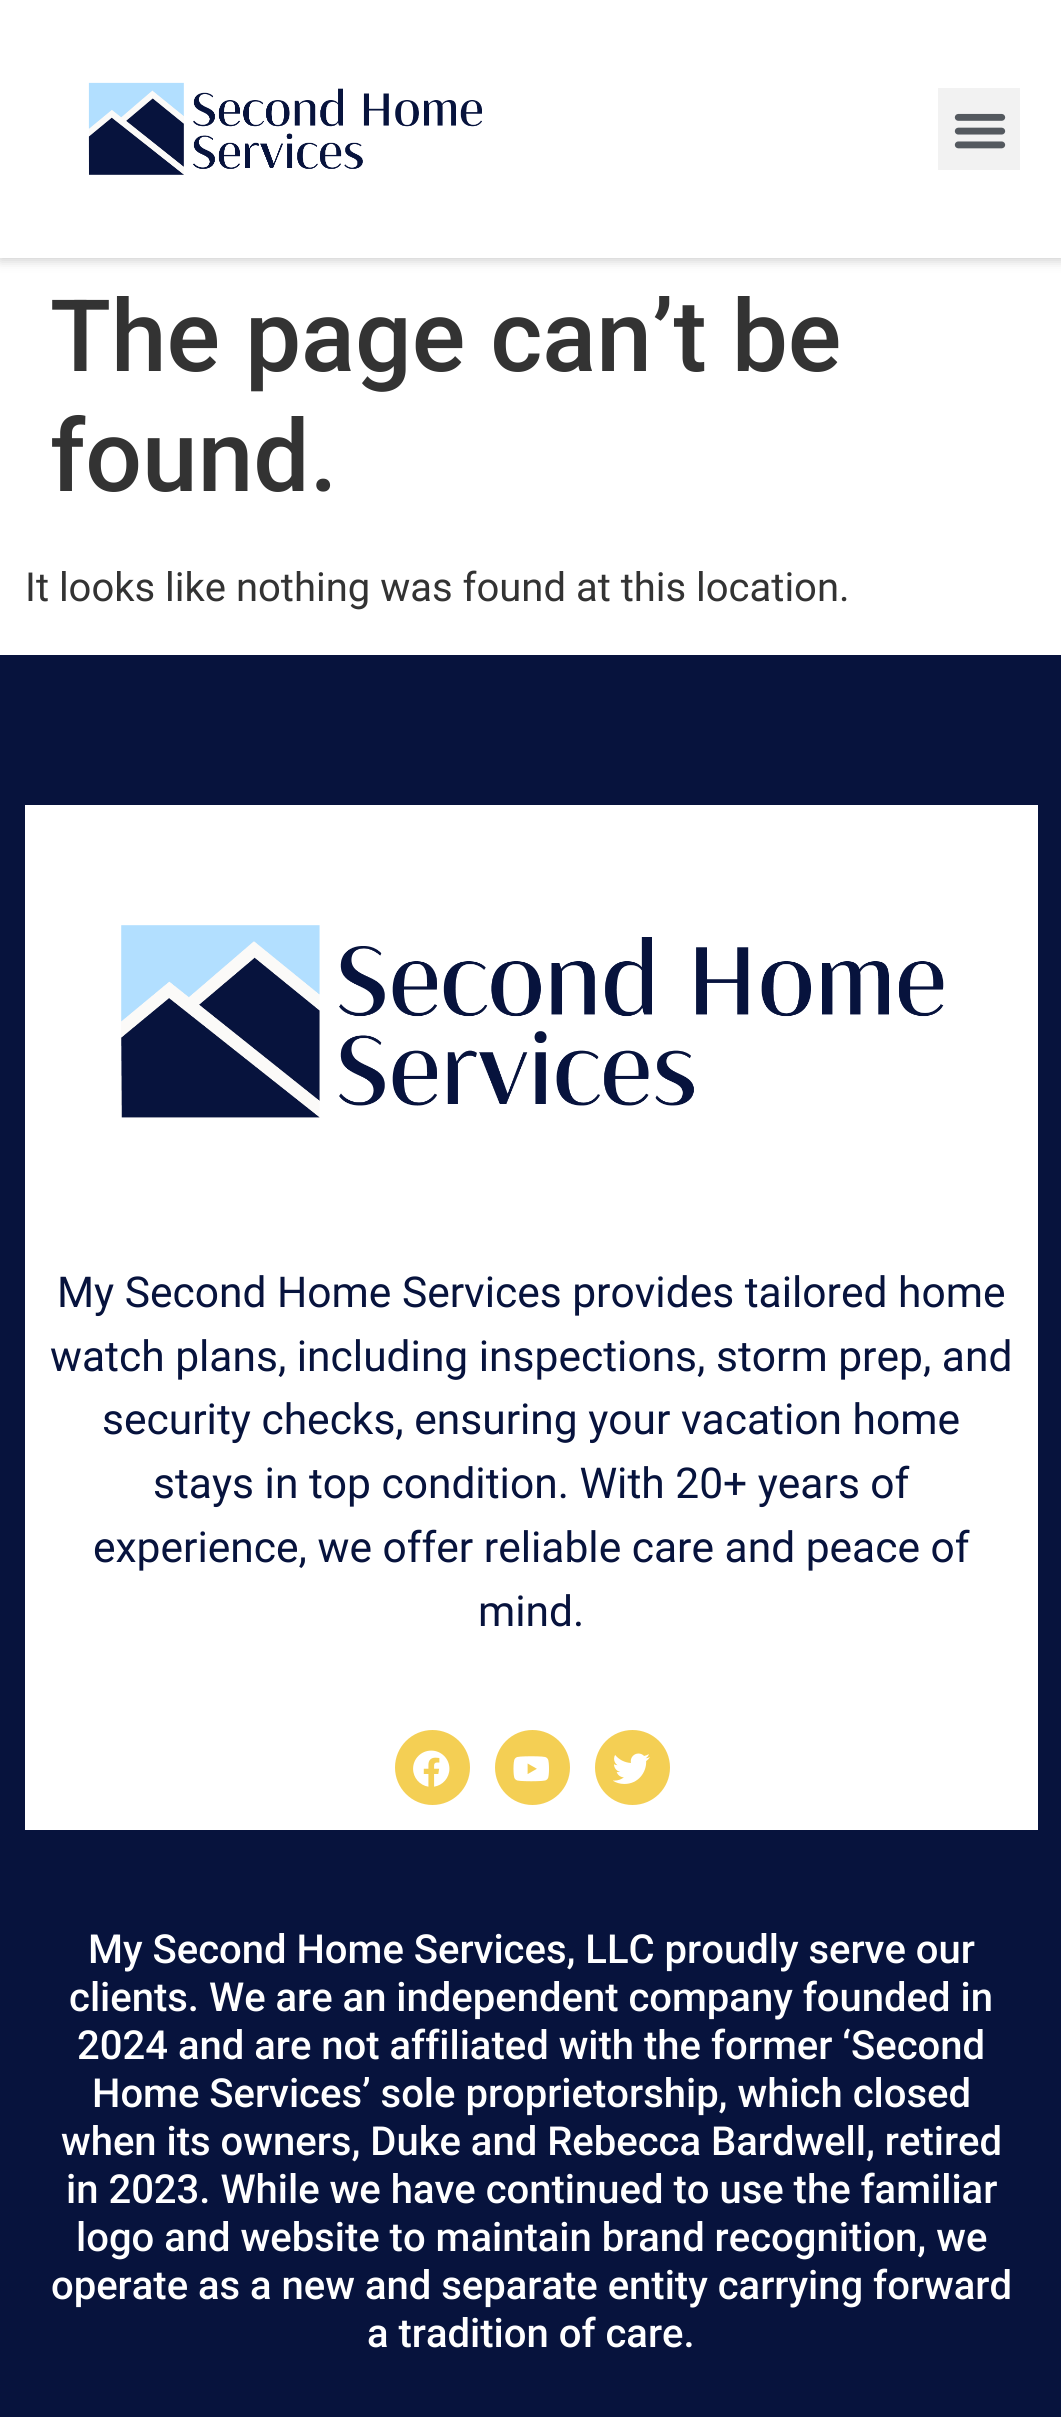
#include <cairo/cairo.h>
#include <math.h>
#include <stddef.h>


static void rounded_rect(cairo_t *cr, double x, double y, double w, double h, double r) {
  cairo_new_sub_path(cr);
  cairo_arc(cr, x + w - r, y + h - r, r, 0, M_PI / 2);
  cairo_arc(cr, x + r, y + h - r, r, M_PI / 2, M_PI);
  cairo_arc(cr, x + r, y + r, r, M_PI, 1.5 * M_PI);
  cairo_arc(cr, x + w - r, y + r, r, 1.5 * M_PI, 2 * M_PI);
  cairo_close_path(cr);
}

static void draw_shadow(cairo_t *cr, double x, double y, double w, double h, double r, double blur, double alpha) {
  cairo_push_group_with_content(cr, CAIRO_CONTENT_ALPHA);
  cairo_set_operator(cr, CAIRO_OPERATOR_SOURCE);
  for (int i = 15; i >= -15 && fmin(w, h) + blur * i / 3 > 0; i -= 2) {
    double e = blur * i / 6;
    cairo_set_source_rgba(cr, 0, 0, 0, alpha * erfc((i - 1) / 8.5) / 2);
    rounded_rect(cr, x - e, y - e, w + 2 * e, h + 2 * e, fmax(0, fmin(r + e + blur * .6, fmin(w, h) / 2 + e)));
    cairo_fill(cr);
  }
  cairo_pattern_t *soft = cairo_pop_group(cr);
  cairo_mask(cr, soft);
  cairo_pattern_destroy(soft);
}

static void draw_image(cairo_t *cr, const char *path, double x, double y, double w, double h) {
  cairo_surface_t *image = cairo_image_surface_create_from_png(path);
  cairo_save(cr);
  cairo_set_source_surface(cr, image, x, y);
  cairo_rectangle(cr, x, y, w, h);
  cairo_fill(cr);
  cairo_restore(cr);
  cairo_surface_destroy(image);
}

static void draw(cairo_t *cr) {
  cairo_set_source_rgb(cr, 1, 1, 1);
  cairo_paint(cr);
  cairo_set_source_rgb(cr, 0, 0, 0);
  draw_shadow(cr, 0, 3, 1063, 257, 0, 6, 0.21);
  cairo_set_source_rgb(cr, 1, 1, 1);
  cairo_rectangle(cr, 0, 0, 1061, 258);
  cairo_fill(cr);
  draw_image(cr, "images/1.png", 88, 82, 394, 93);
  cairo_set_source_rgb(cr, 242 / 255.0, 242 / 255.0, 242 / 255.0);
  cairo_rectangle(cr, 938, 88, 82, 82);
  cairo_fill(cr);
  draw_image(cr, "images/2.png", 954, 113, 52, 36);
  cairo_set_source_rgb(cr, 7 / 255.0, 19 / 255.0, 61 / 255.0);
  cairo_rectangle(cr, 0, 655, 1061, 1762);
  cairo_fill(cr);
  cairo_set_source_rgb(cr, 1, 1, 1);
  cairo_rectangle(cr, 25, 805, 1013, 1025);
  cairo_fill(cr);
  draw_image(cr, "images/3.png", 121, 925, 823, 193);
  cairo_set_source_rgb(cr, 244 / 255.0, 207 / 255.0, 84 / 255.0);
  cairo_arc(cr, 432.5, 1767.5, 37.5, 0, 2 * M_PI);
  cairo_fill(cr);
  draw_image(cr, "images/4.png", 413, 1750, 37, 37);
  cairo_arc(cr, 532.5, 1767.5, 37.5, 0, 2 * M_PI);
  cairo_fill(cr);
  draw_image(cr, "images/5.png", 513, 1756, 36, 26);
  cairo_arc(cr, 632.5, 1767.5, 37.5, 0, 2 * M_PI);
  cairo_fill(cr);
  draw_image(cr, "images/6.png", 613, 1753, 37, 31);
  cairo_select_font_face(cr, "Roboto Medium", CAIRO_FONT_SLANT_NORMAL, CAIRO_FONT_WEIGHT_NORMAL);
  cairo_set_font_size(cr, 100);
  cairo_set_source_rgb(cr, 51 / 255.0, 51 / 255.0, 51 / 255.0);
  cairo_move_to(cr, 50, 371);
  cairo_show_text(cr, "The page can’t be");
  cairo_move_to(cr, 50, 491);
  cairo_show_text(cr, "found.");
  cairo_select_font_face(cr, "Roboto", CAIRO_FONT_SLANT_NORMAL, CAIRO_FONT_WEIGHT_NORMAL);
  cairo_set_font_size(cr, 40);
  cairo_move_to(cr, 25, 601);
  cairo_show_text(cr, "It looks like nothing was found at this location.");
  cairo_set_font_size(cr, 42.5);
  cairo_set_source_rgb(cr, 7 / 255.0, 19 / 255.0, 61 / 255.0);
  cairo_move_to(cr, 57, 1307);
  cairo_show_text(cr, "My Second Home Services provides tailored home");
  cairo_move_to(cr, 50, 1371);
  cairo_show_text(cr, "watch plans, including inspections, storm prep, and");
  cairo_move_to(cr, 102, 1434);
  cairo_show_text(cr, "security checks, ensuring your vacation home");
  cairo_move_to(cr, 153, 1498);
  cairo_show_text(cr, "stays in top condition. With 20+ years of");
  cairo_move_to(cr, 93, 1562);
  cairo_show_text(cr, "experience, we offer reliable care and peace of");
  cairo_move_to(cr, 478, 1626);
  cairo_show_text(cr, "mind.");
  cairo_select_font_face(cr, "Roboto Medium", CAIRO_FONT_SLANT_NORMAL, CAIRO_FONT_WEIGHT_NORMAL);
  cairo_set_font_size(cr, 40);
  cairo_set_source_rgb(cr, 1, 1, 1);
  cairo_move_to(cr, 88, 1963);
  cairo_show_text(cr, "My Second Home Services, LLC proudly serve our");
  cairo_move_to(cr, 69, 2011);
  cairo_show_text(cr, "clients. We are an independent company founded in");
  cairo_move_to(cr, 77, 2059);
  cairo_show_text(cr, "2024 and are not affiliated with the former ‘Second");
  cairo_move_to(cr, 92, 2107);
  cairo_show_text(cr, "Home Services’ sole proprietorship, which closed");
  cairo_move_to(cr, 61, 2155);
  cairo_show_text(cr, "when its owners, Duke and Rebecca Bardwell, retired");
  cairo_move_to(cr, 66, 2203);
  cairo_show_text(cr, "in 2023. While we have continued to use the familiar");
  cairo_move_to(cr, 76, 2251);
  cairo_show_text(cr, "logo and website to maintain brand recognition, we");
  cairo_move_to(cr, 51, 2299);
  cairo_show_text(cr, "operate as a new and separate entity carrying forward");
  cairo_move_to(cr, 367, 2347);
  cairo_show_text(cr, "a tradition of care.");
}

int main(void) {
  cairo_surface_t *surface = cairo_image_surface_create(CAIRO_FORMAT_RGB24, 1061, 2417);
  cairo_t *cr = cairo_create(surface);
  cairo_font_options_t *options = cairo_font_options_create();
  cairo_font_options_set_hint_metrics(options, CAIRO_HINT_METRICS_OFF);
  cairo_font_options_set_hint_style(options, CAIRO_HINT_STYLE_NONE);
  cairo_set_font_options(cr, options);
  cairo_set_miter_limit(cr, 4);
  draw(cr);
  cairo_surface_write_to_png(surface, "out.png");
  cairo_font_options_destroy(options);
  cairo_destroy(cr);
  cairo_surface_destroy(surface);
  return 0;
}
